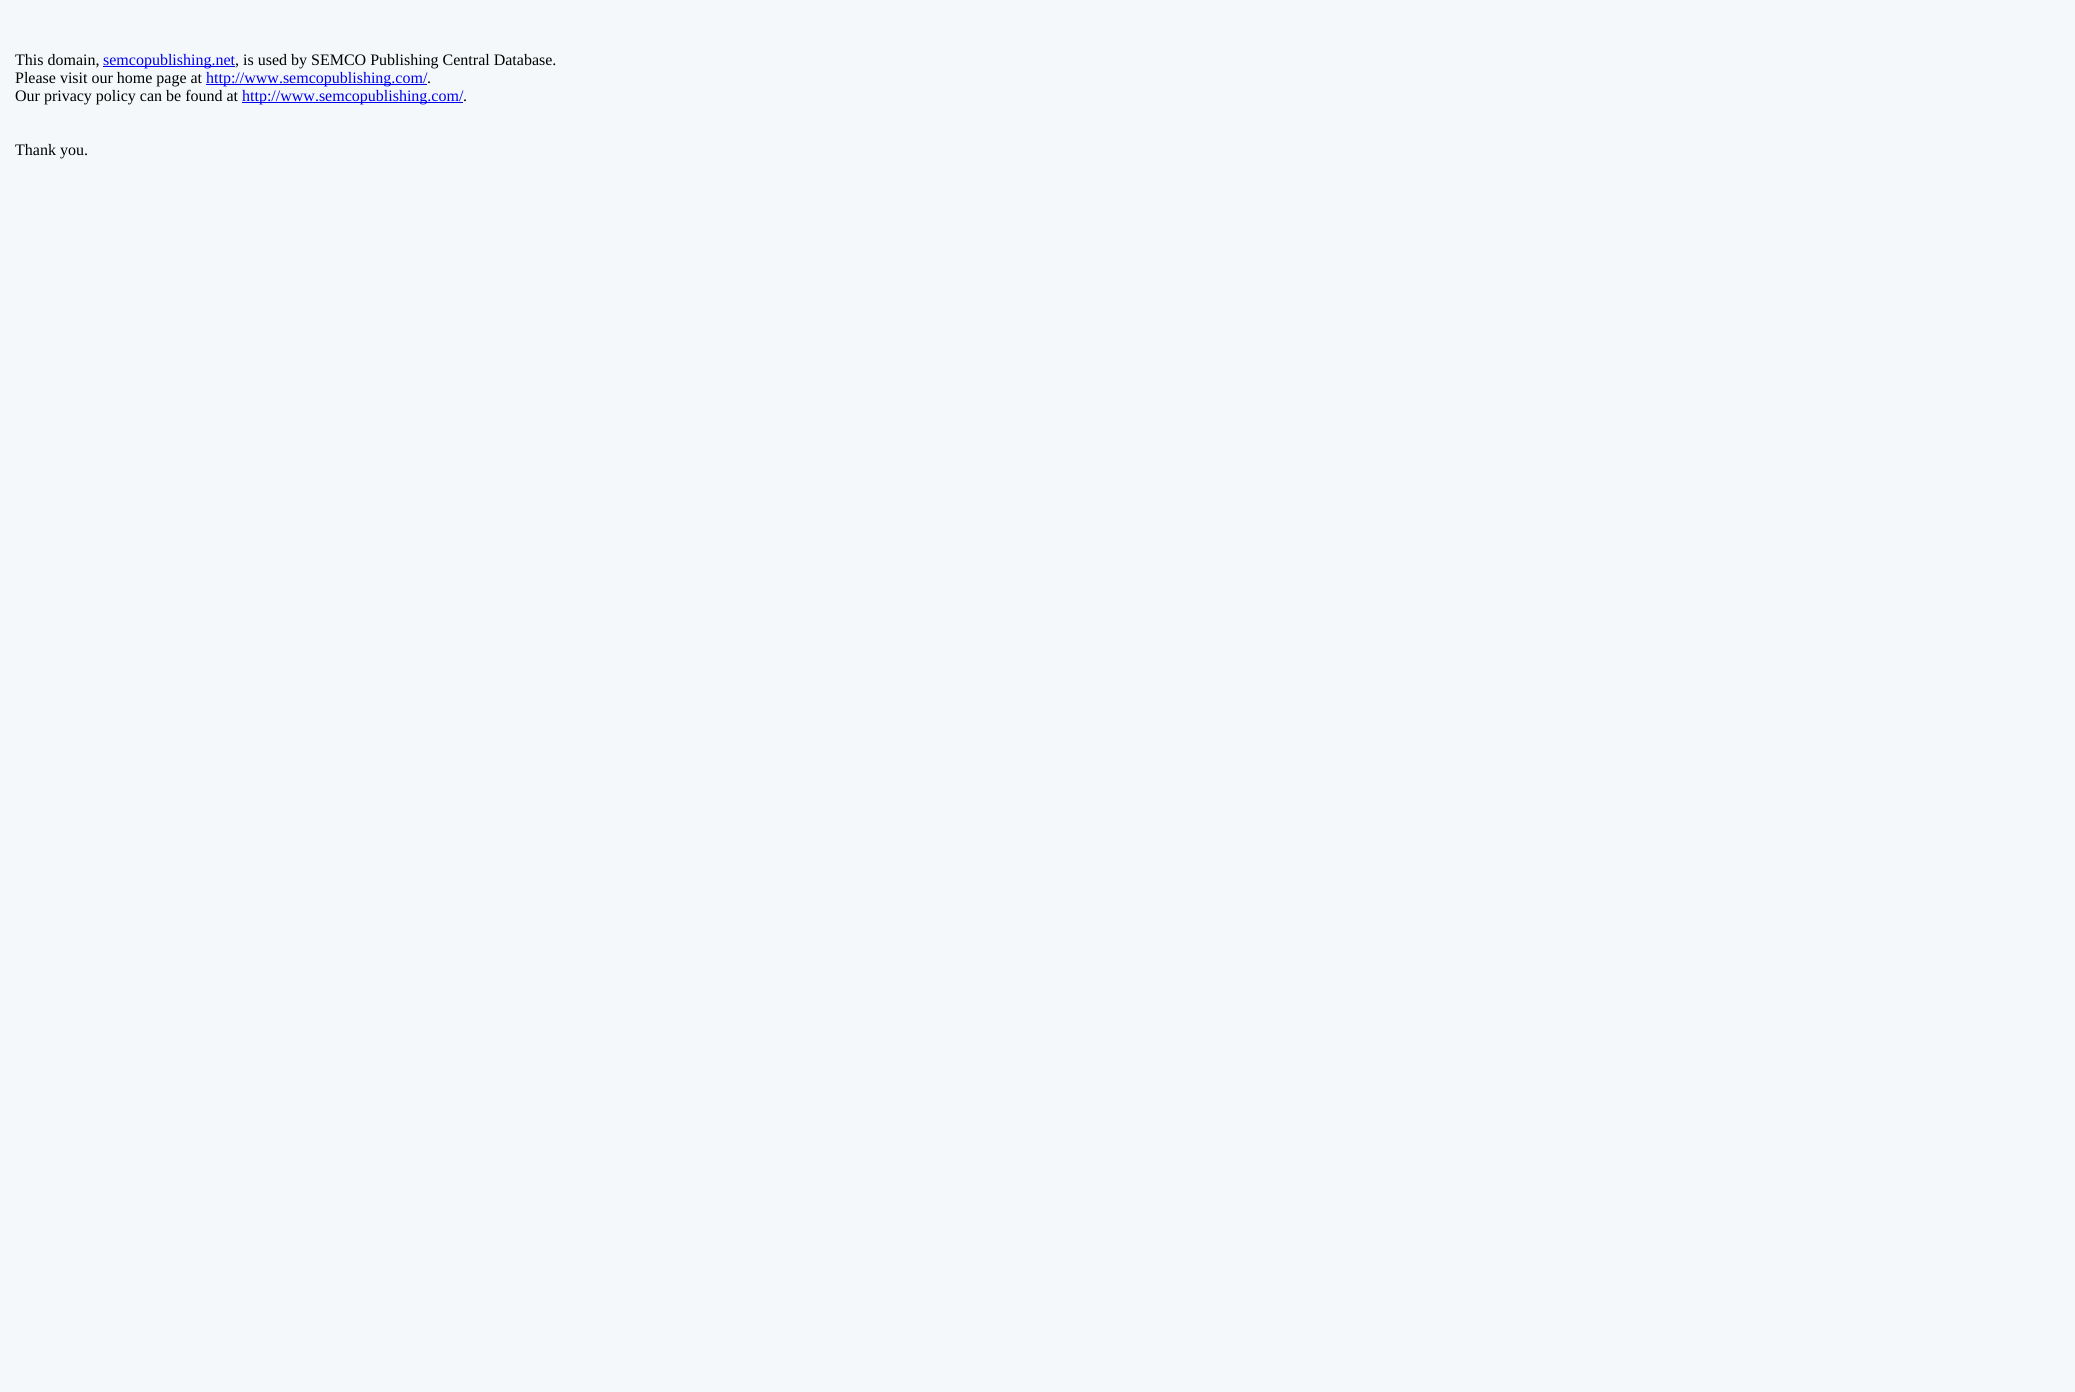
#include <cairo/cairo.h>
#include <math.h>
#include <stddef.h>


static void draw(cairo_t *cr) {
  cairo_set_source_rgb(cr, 245 / 255.0, 248 / 255.0, 250 / 255.0);
  cairo_paint(cr);
  cairo_set_source_rgb(cr, 0, 0, 238 / 255.0);
  cairo_rectangle(cr, 103, 66, 132, 1);
  cairo_fill(cr);
  cairo_rectangle(cr, 206, 84, 221, 1);
  cairo_fill(cr);
  cairo_rectangle(cr, 242, 102, 221, 1);
  cairo_fill(cr);
  cairo_select_font_face(cr, "Liberation Serif", CAIRO_FONT_SLANT_NORMAL, CAIRO_FONT_WEIGHT_NORMAL);
  cairo_set_font_size(cr, 16);
  cairo_set_source_rgb(cr, 0, 0, 0);
  cairo_move_to(cr, 15, 65);
  cairo_show_text(cr, "This domain,");
  cairo_set_source_rgb(cr, 0, 0, 238 / 255.0);
  cairo_move_to(cr, 103, 65);
  cairo_show_text(cr, "semcopublishing.net");
  cairo_set_source_rgb(cr, 0, 0, 0);
  cairo_move_to(cr, 235, 65);
  cairo_show_text(cr, ", is used by SEMCO Publishing Central Database.");
  cairo_move_to(cr, 15, 83);
  cairo_show_text(cr, "Please visit our home page at");
  cairo_set_source_rgb(cr, 0, 0, 238 / 255.0);
  cairo_move_to(cr, 206, 83);
  cairo_show_text(cr, "http://www.semcopublishing.com/");
  cairo_set_source_rgb(cr, 0, 0, 0);
  cairo_move_to(cr, 427, 83);
  cairo_show_text(cr, ".");
  cairo_move_to(cr, 15, 101);
  cairo_show_text(cr, "Our privacy policy can be found at");
  cairo_set_source_rgb(cr, 0, 0, 238 / 255.0);
  cairo_move_to(cr, 242, 101);
  cairo_show_text(cr, "http://www.semcopublishing.com/");
  cairo_set_source_rgb(cr, 0, 0, 0);
  cairo_move_to(cr, 463, 101);
  cairo_show_text(cr, ".");
  cairo_move_to(cr, 15, 155);
  cairo_show_text(cr, "Thank you.");
}

int main(void) {
  cairo_surface_t *surface = cairo_image_surface_create(CAIRO_FORMAT_RGB24, 2075, 1392);
  cairo_t *cr = cairo_create(surface);
  cairo_font_options_t *options = cairo_font_options_create();
  cairo_font_options_set_hint_metrics(options, CAIRO_HINT_METRICS_OFF);
  cairo_font_options_set_hint_style(options, CAIRO_HINT_STYLE_NONE);
  cairo_set_font_options(cr, options);
  cairo_set_miter_limit(cr, 4);
  draw(cr);
  cairo_surface_write_to_png(surface, "out.png");
  cairo_font_options_destroy(options);
  cairo_destroy(cr);
  cairo_surface_destroy(surface);
  return 0;
}
